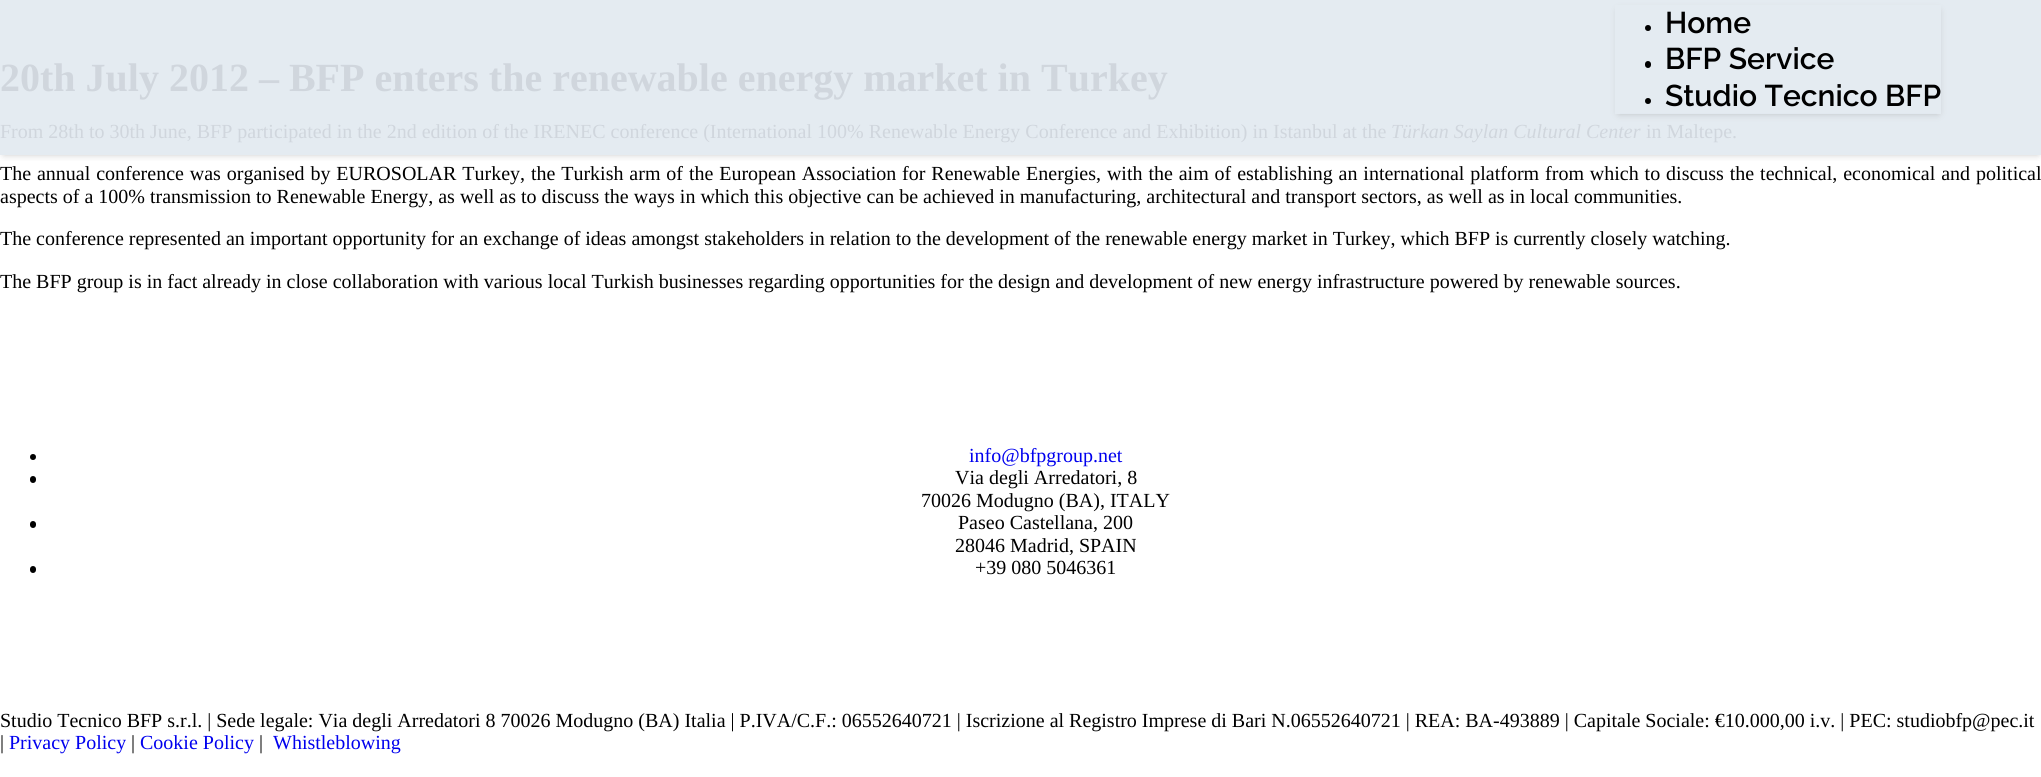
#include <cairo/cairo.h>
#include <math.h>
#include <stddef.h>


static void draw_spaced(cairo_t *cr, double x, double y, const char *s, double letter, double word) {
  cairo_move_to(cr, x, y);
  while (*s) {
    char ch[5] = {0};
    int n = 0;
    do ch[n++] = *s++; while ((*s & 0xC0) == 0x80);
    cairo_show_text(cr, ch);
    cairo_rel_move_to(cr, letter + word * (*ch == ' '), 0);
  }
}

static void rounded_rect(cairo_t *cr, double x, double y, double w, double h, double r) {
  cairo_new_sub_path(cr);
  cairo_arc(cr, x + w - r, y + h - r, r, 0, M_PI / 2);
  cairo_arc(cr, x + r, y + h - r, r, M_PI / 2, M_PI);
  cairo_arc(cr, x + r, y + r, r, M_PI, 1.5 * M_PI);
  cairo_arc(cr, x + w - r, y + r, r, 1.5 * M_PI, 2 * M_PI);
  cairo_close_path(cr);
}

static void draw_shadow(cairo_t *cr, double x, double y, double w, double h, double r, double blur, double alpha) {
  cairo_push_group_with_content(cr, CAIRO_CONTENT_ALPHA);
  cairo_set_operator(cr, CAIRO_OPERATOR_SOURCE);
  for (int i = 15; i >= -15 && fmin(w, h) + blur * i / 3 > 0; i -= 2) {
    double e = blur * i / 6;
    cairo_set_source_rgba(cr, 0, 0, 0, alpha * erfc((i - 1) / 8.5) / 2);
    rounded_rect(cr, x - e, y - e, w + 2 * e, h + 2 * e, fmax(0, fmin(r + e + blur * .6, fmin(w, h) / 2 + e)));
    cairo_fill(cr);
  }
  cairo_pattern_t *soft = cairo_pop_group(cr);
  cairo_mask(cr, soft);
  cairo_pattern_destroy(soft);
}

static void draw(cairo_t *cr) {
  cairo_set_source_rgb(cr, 1, 1, 1);
  cairo_paint(cr);
  cairo_set_source_rgb(cr, 228 / 255.0, 235 / 255.0, 241 / 255.0);
  cairo_rectangle(cr, 0, 0, 2041, 155);
  cairo_fill(cr);
  cairo_save(cr);
  cairo_rectangle(cr, 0, 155, 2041, 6);
  cairo_clip(cr);
  cairo_set_source_rgb(cr, 160 / 255.0, 160 / 255.0, 160 / 255.0);
  draw_shadow(cr, 4, -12, 2034, 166, 0, 4, 0.65);
  cairo_restore(cr);
  cairo_save(cr);
  cairo_set_fill_rule(cr, CAIRO_FILL_RULE_EVEN_ODD);
  cairo_new_path(cr);
  cairo_move_to(cr, 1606, 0);
  cairo_line_to(cr, 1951, 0);
  cairo_line_to(cr, 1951, 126);
  cairo_line_to(cr, 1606, 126);
  cairo_close_path(cr);
  cairo_move_to(cr, 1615, 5);
  cairo_line_to(cr, 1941, 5);
  cairo_line_to(cr, 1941, 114);
  cairo_line_to(cr, 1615, 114);
  cairo_close_path(cr);
  cairo_clip(cr);
  cairo_set_source_rgb(cr, 160 / 255.0, 160 / 255.0, 160 / 255.0);
  draw_shadow(cr, 1619, 11, 319, 102, 0, 4, 0.65);
  cairo_restore(cr);
  cairo_set_source_rgba(cr, 226 / 255.0, 233 / 255.0, 240 / 255.0, 0.92);
  cairo_rectangle(cr, 1620, 113, 317, 1);
  cairo_fill(cr);
  cairo_set_source_rgb(cr, 0, 0, 0);
  cairo_arc(cr, 1648, 28, 3, 0, 2 * M_PI);
  cairo_fill(cr);
  rounded_rect(cr, 1645, 61, 6, 7, 3);
  cairo_fill(cr);
  cairo_arc(cr, 1648, 101, 3, 0, 2 * M_PI);
  cairo_fill(cr);
  cairo_arc(cr, 33, 457, 3, 0, 2 * M_PI);
  cairo_fill(cr);
  rounded_rect(cr, 30, 476, 6, 7, 3);
  cairo_fill(cr);
  rounded_rect(cr, 30, 521, 6, 7, 3);
  cairo_fill(cr);
  rounded_rect(cr, 30, 566, 6, 7, 3);
  cairo_fill(cr);
  cairo_select_font_face(cr, "Raleway SemiBold", CAIRO_FONT_SLANT_NORMAL, CAIRO_FONT_WEIGHT_NORMAL);
  cairo_set_font_size(cr, 30);
  cairo_move_to(cr, 1665, 33);
  cairo_show_text(cr, "Home");
  cairo_move_to(cr, 1665, 69);
  cairo_show_text(cr, "BFP Service");
  cairo_move_to(cr, 1665, 106);
  cairo_show_text(cr, "Studio Tecnico BFP");
  cairo_select_font_face(cr, "Liberation Serif", CAIRO_FONT_SLANT_NORMAL, CAIRO_FONT_WEIGHT_BOLD);
  cairo_set_font_size(cr, 40);
  cairo_set_source_rgb(cr, 208 / 255.0, 214 / 255.0, 221 / 255.0);
  cairo_move_to(cr, 0, 91);
  cairo_show_text(cr, "20th July 2012 – BFP enters the renewable energy market in Turkey");
  cairo_select_font_face(cr, "Liberation Serif", CAIRO_FONT_SLANT_NORMAL, CAIRO_FONT_WEIGHT_NORMAL);
  cairo_set_font_size(cr, 20);
  cairo_move_to(cr, 0, 138);
  cairo_show_text(cr, "From 28th to 30th June, BFP participated in the 2nd edition of the IRENEC conference (International 100% Renewable Energy Conference and Exhibition) in Istanbul at the");
  cairo_select_font_face(cr, "Liberation Serif", CAIRO_FONT_SLANT_ITALIC, CAIRO_FONT_WEIGHT_NORMAL);
  cairo_move_to(cr, 1391, 138);
  cairo_show_text(cr, "Türkan Saylan Cultural Center");
  cairo_select_font_face(cr, "Liberation Serif", CAIRO_FONT_SLANT_NORMAL, CAIRO_FONT_WEIGHT_NORMAL);
  cairo_move_to(cr, 1646, 138);
  cairo_show_text(cr, "in Maltepe.");
  cairo_set_source_rgb(cr, 0, 0, 0);
  draw_spaced(cr, 0, 180, "The annual conference was organised by EUROSOLAR Turkey, the Turkish arm of the European Association for Renewable Energies, with the aim of establishing an international platform from which to discuss the technical, economical and political", 0, 0.9);
  cairo_move_to(cr, 0, 203);
  cairo_show_text(cr, "aspects of a 100% transmission to Renewable Energy, as well as to discuss the ways in which this objective can be achieved in manufacturing, architectural and transport sectors, as well as in local communities.");
  cairo_move_to(cr, 0, 245);
  cairo_show_text(cr, "The conference represented an important opportunity for an exchange of ideas amongst stakeholders in relation to the development of the renewable energy market in Turkey, which BFP is currently closely watching.");
  cairo_move_to(cr, 0, 288);
  cairo_show_text(cr, "The BFP group is in fact already in close collaboration with various local Turkish businesses regarding opportunities for the design and development of new energy infrastructure powered by renewable sources.");
  cairo_set_source_rgb(cr, 0, 0, 238 / 255.0);
  cairo_move_to(cr, 969, 462);
  cairo_show_text(cr, "info@bfpgroup.net");
  cairo_set_source_rgb(cr, 0, 0, 0);
  cairo_move_to(cr, 955, 484);
  cairo_show_text(cr, "Via degli Arredatori, 8");
  cairo_move_to(cr, 921, 507);
  cairo_show_text(cr, "70026 Modugno (BA), ITALY");
  cairo_move_to(cr, 958, 529);
  cairo_show_text(cr, "Paseo Castellana, 200");
  cairo_move_to(cr, 955, 552);
  cairo_show_text(cr, "28046 Madrid, SPAIN");
  cairo_move_to(cr, 975, 574);
  cairo_show_text(cr, "+39 080 5046361");
  cairo_move_to(cr, 0, 727);
  cairo_show_text(cr, "Studio Tecnico BFP s.r.l. | Sede legale: Via degli Arredatori 8 70026 Modugno (BA) Italia | P.IVA/C.F.: 06552640721 | Iscrizione al Registro Imprese di Bari N.06552640721 | REA: BA-493889 | Capitale Sociale: €10.000,00 i.v. | PEC: studiobfp@pec.it");
  cairo_move_to(cr, 0, 749);
  cairo_show_text(cr, "|");
  cairo_set_source_rgb(cr, 0, 0, 238 / 255.0);
  cairo_move_to(cr, 9, 749);
  cairo_show_text(cr, "Privacy Policy");
  cairo_set_source_rgb(cr, 0, 0, 0);
  cairo_move_to(cr, 131, 749);
  cairo_show_text(cr, "|");
  cairo_set_source_rgb(cr, 0, 0, 238 / 255.0);
  cairo_move_to(cr, 140, 749);
  cairo_show_text(cr, "Cookie Policy");
  cairo_set_source_rgb(cr, 0, 0, 0);
  cairo_move_to(cr, 259, 749);
  cairo_show_text(cr, "|");
  cairo_set_source_rgb(cr, 0, 0, 238 / 255.0);
  cairo_move_to(cr, 273, 749);
  cairo_show_text(cr, "Whistleblowing");
}

int main(void) {
  cairo_surface_t *surface = cairo_image_surface_create(CAIRO_FORMAT_RGB24, 2041, 777);
  cairo_t *cr = cairo_create(surface);
  cairo_font_options_t *options = cairo_font_options_create();
  cairo_font_options_set_hint_metrics(options, CAIRO_HINT_METRICS_OFF);
  cairo_font_options_set_hint_style(options, CAIRO_HINT_STYLE_NONE);
  cairo_set_font_options(cr, options);
  cairo_set_miter_limit(cr, 4);
  draw(cr);
  cairo_surface_write_to_png(surface, "out.png");
  cairo_font_options_destroy(options);
  cairo_destroy(cr);
  cairo_surface_destroy(surface);
  return 0;
}
